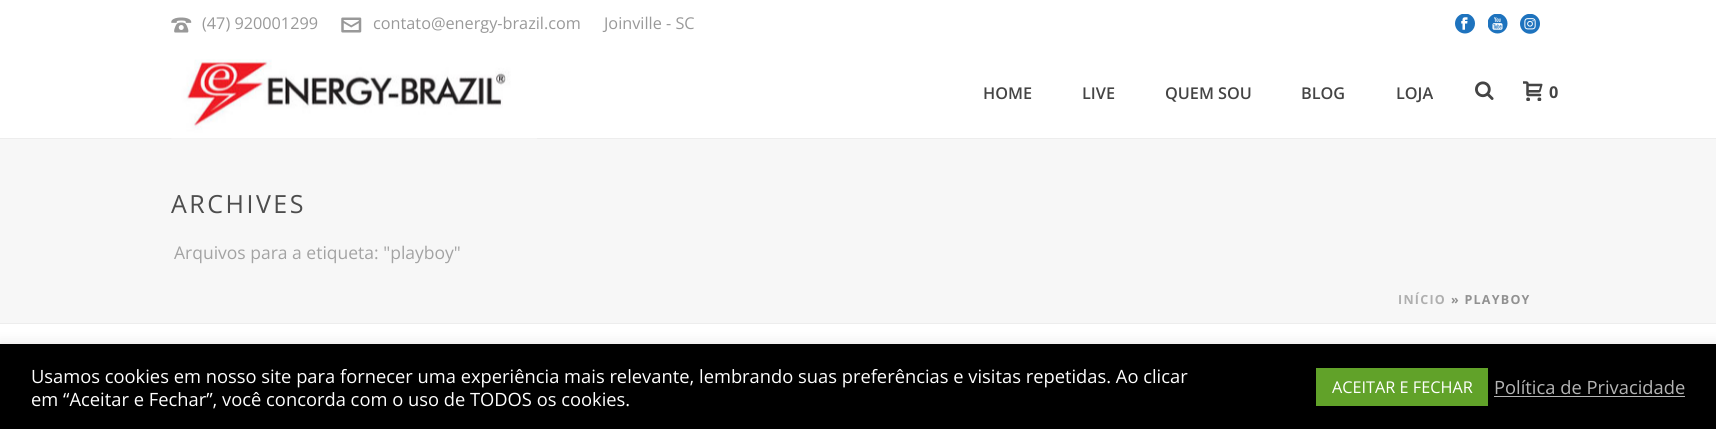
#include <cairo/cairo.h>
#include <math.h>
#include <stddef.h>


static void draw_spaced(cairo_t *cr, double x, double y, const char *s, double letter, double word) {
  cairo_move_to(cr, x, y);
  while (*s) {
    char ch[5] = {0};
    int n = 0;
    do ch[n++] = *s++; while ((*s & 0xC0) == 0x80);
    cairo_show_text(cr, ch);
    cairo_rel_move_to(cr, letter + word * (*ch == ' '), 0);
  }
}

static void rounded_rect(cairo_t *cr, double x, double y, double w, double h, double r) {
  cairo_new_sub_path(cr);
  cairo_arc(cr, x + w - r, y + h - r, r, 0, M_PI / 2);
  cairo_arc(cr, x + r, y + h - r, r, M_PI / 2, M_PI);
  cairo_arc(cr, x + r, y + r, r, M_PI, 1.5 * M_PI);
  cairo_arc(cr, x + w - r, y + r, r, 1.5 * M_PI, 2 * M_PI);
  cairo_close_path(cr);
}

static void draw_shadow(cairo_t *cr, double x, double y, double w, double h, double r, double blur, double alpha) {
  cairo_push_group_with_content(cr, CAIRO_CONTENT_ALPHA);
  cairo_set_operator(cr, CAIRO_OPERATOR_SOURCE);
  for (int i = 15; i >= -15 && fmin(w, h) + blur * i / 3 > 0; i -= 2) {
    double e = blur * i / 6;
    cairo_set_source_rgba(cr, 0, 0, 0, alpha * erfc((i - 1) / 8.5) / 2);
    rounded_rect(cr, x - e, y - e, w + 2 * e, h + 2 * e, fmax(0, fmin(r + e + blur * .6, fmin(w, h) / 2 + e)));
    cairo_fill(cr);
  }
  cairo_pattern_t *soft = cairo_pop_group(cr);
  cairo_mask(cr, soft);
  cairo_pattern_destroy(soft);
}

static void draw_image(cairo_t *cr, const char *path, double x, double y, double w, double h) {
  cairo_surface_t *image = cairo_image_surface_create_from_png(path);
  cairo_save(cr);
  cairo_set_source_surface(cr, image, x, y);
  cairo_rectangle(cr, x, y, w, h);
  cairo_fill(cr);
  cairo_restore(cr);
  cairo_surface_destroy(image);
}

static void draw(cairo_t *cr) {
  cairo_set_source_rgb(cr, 1, 1, 1);
  cairo_paint(cr);
  cairo_set_source_rgb(cr, 247 / 255.0, 247 / 255.0, 247 / 255.0);
  cairo_rectangle(cr, 0, 139, 1716, 184);
  cairo_fill(cr);
  cairo_set_source_rgb(cr, 237 / 255.0, 237 / 255.0, 237 / 255.0);
  cairo_rectangle(cr, 0, 323, 1716, 1);
  cairo_fill(cr);
  draw_image(cr, "images/1.png", 171, 17, 21, 16);
  draw_image(cr, "images/2.png", 341, 17, 21, 16);
  draw_image(cr, "images/3.png", 1455, 14, 20, 20);
  draw_image(cr, "images/4.png", 1488, 14, 20, 20);
  draw_image(cr, "images/5.png", 1520, 14, 20, 20);
  cairo_rectangle(cr, 0, 138, 1716, 1);
  cairo_fill(cr);
  draw_image(cr, "images/6.png", 171, 59, 366, 80);
  draw_image(cr, "images/7.png", 1475, 81, 19, 19);
  draw_image(cr, "images/8.png", 1523, 81, 20, 20);
  cairo_set_source_rgb(cr, 172 / 255.0, 171 / 255.0, 171 / 255.0);
  draw_shadow(cr, 0, 343, 1716, 86, 0, 6, 0.3);
  cairo_set_source_rgb(cr, 0, 0, 0);
  cairo_rectangle(cr, 0, 344, 1716, 85);
  cairo_fill(cr);
  cairo_set_source_rgb(cr, 97 / 255.0, 162 / 255.0, 41 / 255.0);
  cairo_rectangle(cr, 1316, 368, 172, 38);
  cairo_fill(cr);
  cairo_set_source_rgb(cr, 181 / 255.0, 181 / 255.0, 181 / 255.0);
  cairo_rectangle(cr, 1494, 396, 191, 1);
  cairo_fill(cr);
  cairo_select_font_face(cr, "Open Sans", CAIRO_FONT_SLANT_NORMAL, CAIRO_FONT_WEIGHT_NORMAL);
  cairo_set_font_size(cr, 16.25);
  cairo_set_source_rgb(cr, 153 / 255.0, 153 / 255.0, 153 / 255.0);
  cairo_move_to(cr, 202, 29);
  cairo_show_text(cr, "(47) 920001299");
  cairo_move_to(cr, 373, 29);
  cairo_show_text(cr, "contato@energy-brazil.com");
  cairo_move_to(cr, 604, 29);
  cairo_show_text(cr, "Joinville - SC");
  cairo_select_font_face(cr, "Open Sans SemiBold", CAIRO_FONT_SLANT_NORMAL, CAIRO_FONT_WEIGHT_NORMAL);
  cairo_set_source_rgb(cr, 68 / 255.0, 68 / 255.0, 68 / 255.0);
  cairo_move_to(cr, 983, 99);
  cairo_show_text(cr, "HOME");
  cairo_move_to(cr, 1082, 99);
  cairo_show_text(cr, "LIVE");
  cairo_move_to(cr, 1165, 99);
  cairo_show_text(cr, "QUEM SOU");
  cairo_move_to(cr, 1301, 99);
  cairo_show_text(cr, "BLOG");
  cairo_move_to(cr, 1396, 99);
  cairo_show_text(cr, "LOJA");
  cairo_select_font_face(cr, "Open Sans", CAIRO_FONT_SLANT_NORMAL, CAIRO_FONT_WEIGHT_BOLD);
  cairo_move_to(cr, 1549, 98);
  cairo_show_text(cr, "0");
  cairo_select_font_face(cr, "Open Sans", CAIRO_FONT_SLANT_NORMAL, CAIRO_FONT_WEIGHT_NORMAL);
  cairo_set_font_size(cr, 25);
  cairo_set_source_rgb(cr, 77 / 255.0, 77 / 255.0, 77 / 255.0);
  draw_spaced(cr, 171, 213, "ARCHIVES", 2.5, 0);
  cairo_set_font_size(cr, 17.5);
  cairo_set_source_rgb(cr, 163 / 255.0, 163 / 255.0, 163 / 255.0);
  cairo_move_to(cr, 174, 259);
  cairo_show_text(cr, "Arquivos para a etiqueta: \"playboy\"");
  cairo_select_font_face(cr, "Open Sans", CAIRO_FONT_SLANT_NORMAL, CAIRO_FONT_WEIGHT_BOLD);
  cairo_set_font_size(cr, 12.5);
  cairo_set_source_rgb(cr, 175 / 255.0, 175 / 255.0, 175 / 255.0);
  draw_spaced(cr, 1398, 304, "INÍCIO", 1.25, 0);
  cairo_set_source_rgb(cr, 145 / 255.0, 145 / 255.0, 145 / 255.0);
  draw_spaced(cr, 1451, 304, "» PLAYBOY", 1.25, 0);
  cairo_select_font_face(cr, "Open Sans", CAIRO_FONT_SLANT_NORMAL, CAIRO_FONT_WEIGHT_NORMAL);
  cairo_set_font_size(cr, 18.33);
  cairo_set_source_rgb(cr, 1, 1, 1);
  cairo_move_to(cr, 31, 383);
  cairo_show_text(cr, "Usamos cookies em nosso site para fornecer uma experiência mais relevante, lembrando suas preferências e visitas repetidas. Ao clicar");
  cairo_move_to(cr, 31, 406);
  cairo_show_text(cr, "em “Aceitar e Fechar”, você concorda com o uso de TODOS os cookies.");
  cairo_set_font_size(cr, 16.25);
  cairo_move_to(cr, 1332, 393);
  cairo_show_text(cr, "ACEITAR E FECHAR");
  cairo_set_font_size(cr, 18.33);
  cairo_set_source_rgb(cr, 181 / 255.0, 181 / 255.0, 181 / 255.0);
  cairo_move_to(cr, 1494, 394);
  cairo_show_text(cr, "Política de Privacidade");
}

int main(void) {
  cairo_surface_t *surface = cairo_image_surface_create(CAIRO_FORMAT_RGB24, 1716, 429);
  cairo_t *cr = cairo_create(surface);
  cairo_font_options_t *options = cairo_font_options_create();
  cairo_font_options_set_hint_metrics(options, CAIRO_HINT_METRICS_OFF);
  cairo_font_options_set_hint_style(options, CAIRO_HINT_STYLE_NONE);
  cairo_set_font_options(cr, options);
  cairo_set_miter_limit(cr, 4);
  draw(cr);
  cairo_surface_write_to_png(surface, "out.png");
  cairo_font_options_destroy(options);
  cairo_destroy(cr);
  cairo_surface_destroy(surface);
  return 0;
}
